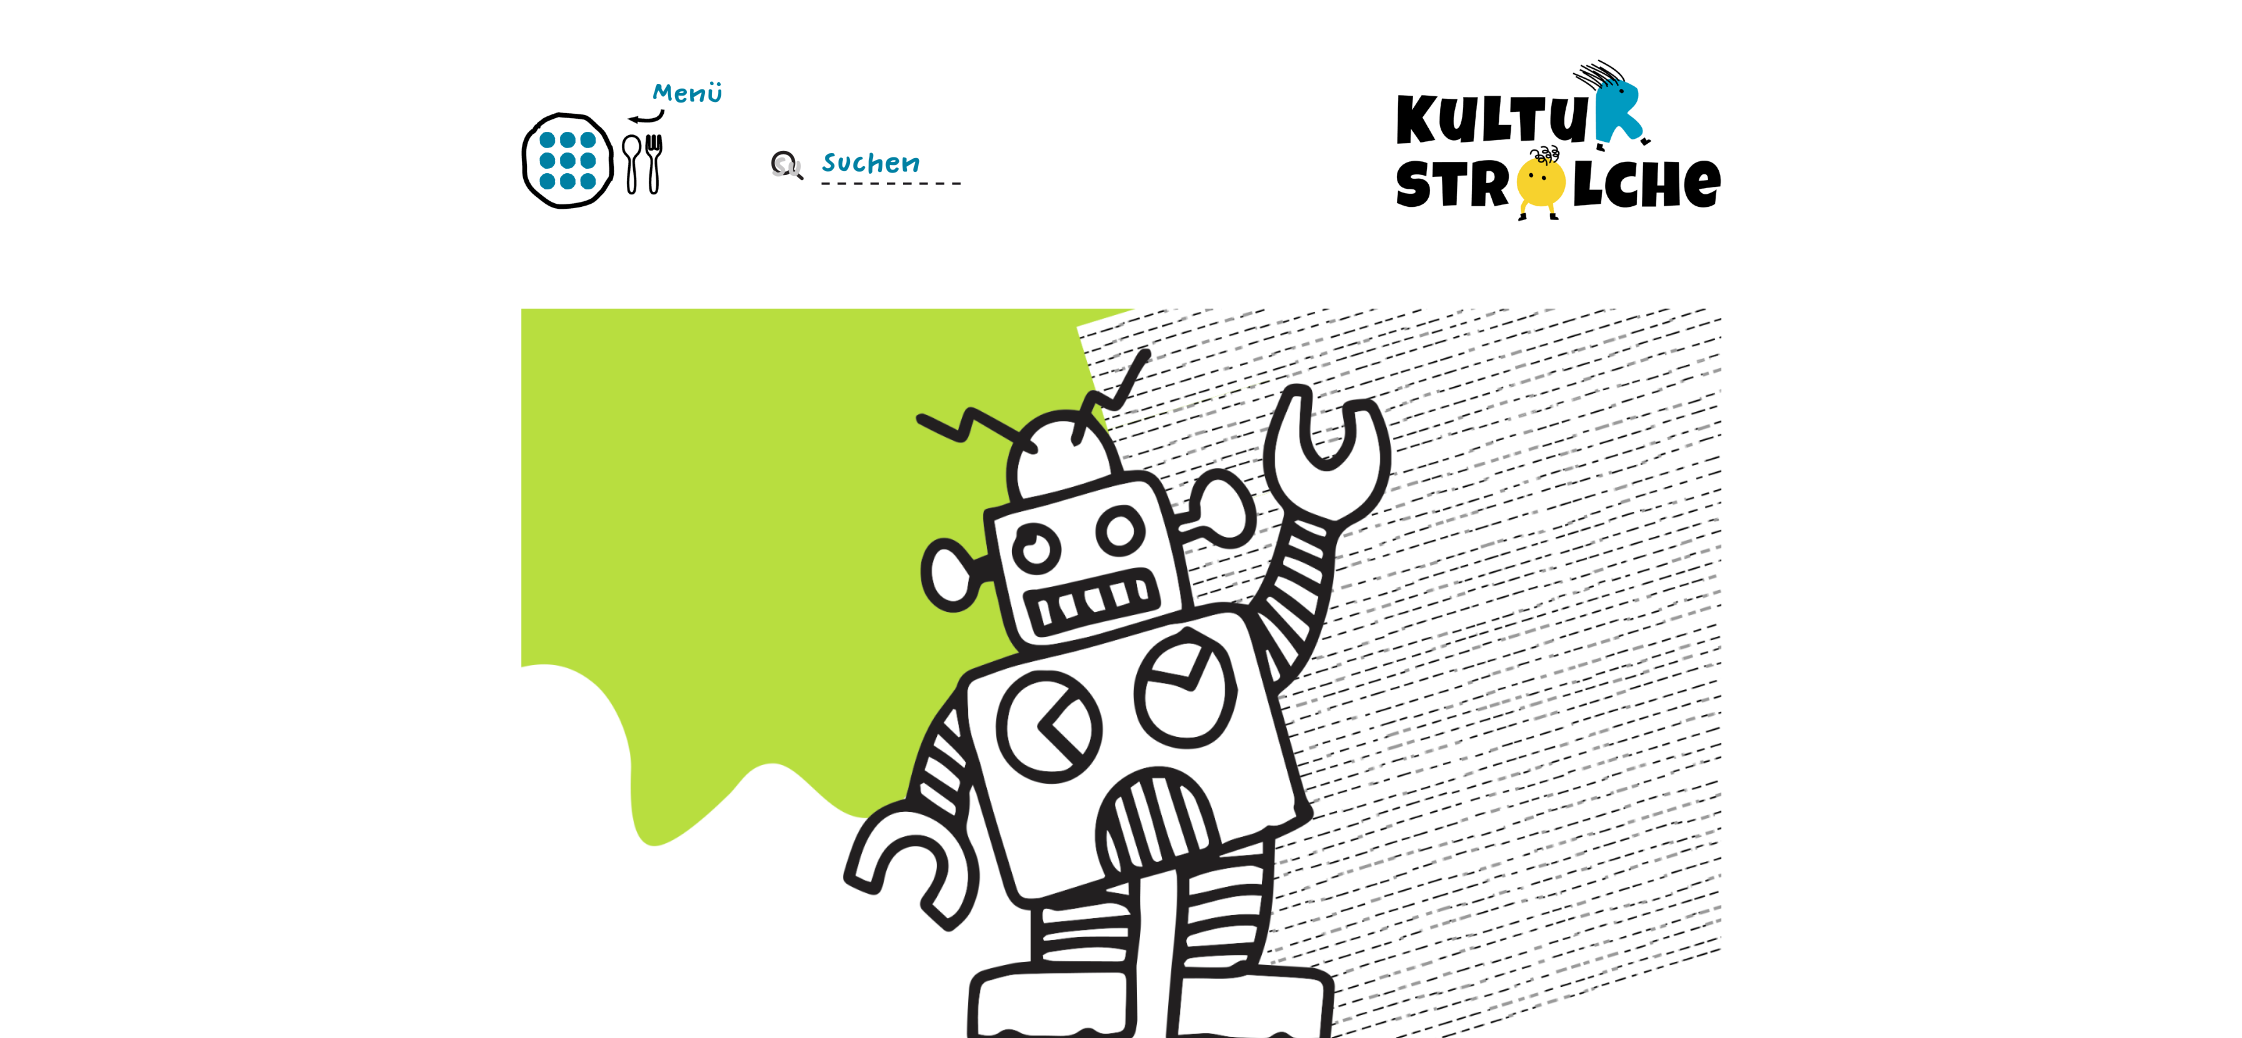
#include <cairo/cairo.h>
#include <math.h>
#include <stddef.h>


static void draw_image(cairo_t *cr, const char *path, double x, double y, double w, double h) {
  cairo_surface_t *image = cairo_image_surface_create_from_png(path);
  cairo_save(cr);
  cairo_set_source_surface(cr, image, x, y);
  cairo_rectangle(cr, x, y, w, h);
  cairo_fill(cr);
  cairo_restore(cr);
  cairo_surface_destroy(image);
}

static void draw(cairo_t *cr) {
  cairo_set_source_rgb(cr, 1, 1, 1);
  cairo_paint(cr);
  draw_image(cr, "images/1.png", 521, 109, 144, 101);
  draw_image(cr, "images/2.png", 1396, 59, 326, 163);
  cairo_new_path(cr);
  cairo_move_to(cr, 783.5, 173.5);
  cairo_curve_to(cr, 797, 173.5, 797, 152.5, 783.5, 152.5);
  cairo_curve_to(cr, 769.5, 152.5, 769.5, 173.5, 783.5, 173.5);
  cairo_close_path(cr);
  cairo_set_source_rgb(cr, 35 / 255.0, 31 / 255.0, 32 / 255.0);
  cairo_set_line_width(cr, 3.4);
  cairo_stroke(cr);
  cairo_new_path(cr);
  cairo_move_to(cr, 791.5, 169.5);
  cairo_line_to(cr, 802, 178.5);
  cairo_set_line_cap(cr, CAIRO_LINE_CAP_ROUND);
  cairo_stroke(cr);
  draw_image(cr, "images/3.png", 821, 182, 140, 3);
  draw_image(cr, "images/4.png", 521, 308, 1201, 730);
  cairo_select_font_face(cr, "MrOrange", CAIRO_FONT_SLANT_NORMAL, CAIRO_FONT_WEIGHT_NORMAL);
  cairo_set_font_size(cr, 22.5);
  cairo_set_source_rgb(cr, 0, 128 / 255.0, 163 / 255.0);
  cairo_move_to(cr, 652, 101);
  cairo_show_text(cr, "Menü");
  cairo_select_font_face(cr, "MrOrange", CAIRO_FONT_SLANT_NORMAL, CAIRO_FONT_WEIGHT_BOLD);
  cairo_set_font_size(cr, 25);
  cairo_set_source_rgb(cr, 200 / 255.0, 199 / 255.0, 200 / 255.0);
  cairo_move_to(cr, 771, 176);
  cairo_show_text(cr, "Su");
  cairo_select_font_face(cr, "MrOrange", CAIRO_FONT_SLANT_NORMAL, CAIRO_FONT_WEIGHT_NORMAL);
  cairo_set_source_rgb(cr, 0, 128 / 255.0, 163 / 255.0);
  cairo_move_to(cr, 821, 171);
  cairo_show_text(cr, "Suchen");
}

int main(void) {
  cairo_surface_t *surface = cairo_image_surface_create(CAIRO_FORMAT_RGB24, 2242, 1038);
  cairo_t *cr = cairo_create(surface);
  cairo_font_options_t *options = cairo_font_options_create();
  cairo_font_options_set_hint_metrics(options, CAIRO_HINT_METRICS_OFF);
  cairo_font_options_set_hint_style(options, CAIRO_HINT_STYLE_NONE);
  cairo_set_font_options(cr, options);
  cairo_set_miter_limit(cr, 4);
  draw(cr);
  cairo_surface_write_to_png(surface, "out.png");
  cairo_font_options_destroy(options);
  cairo_destroy(cr);
  cairo_surface_destroy(surface);
  return 0;
}
